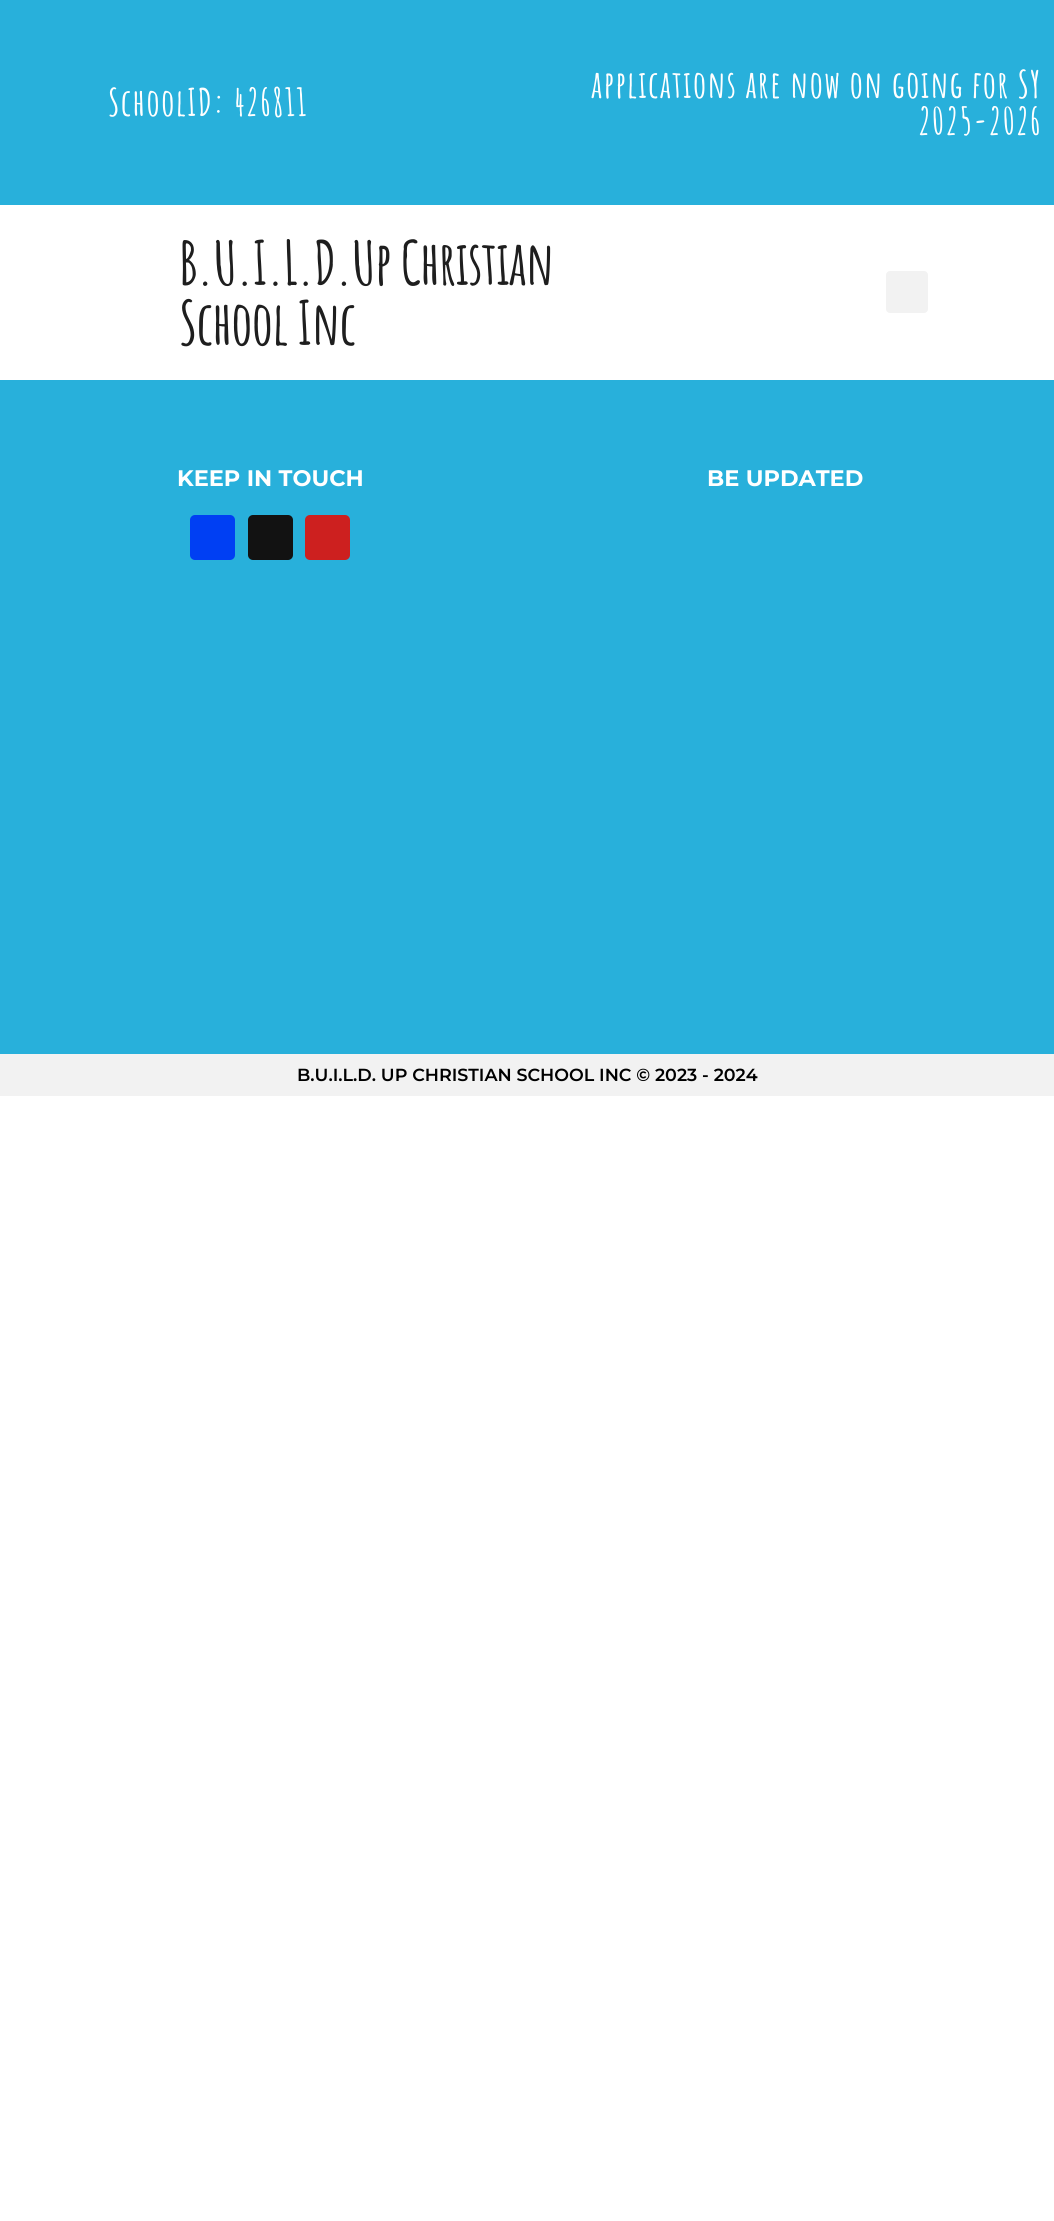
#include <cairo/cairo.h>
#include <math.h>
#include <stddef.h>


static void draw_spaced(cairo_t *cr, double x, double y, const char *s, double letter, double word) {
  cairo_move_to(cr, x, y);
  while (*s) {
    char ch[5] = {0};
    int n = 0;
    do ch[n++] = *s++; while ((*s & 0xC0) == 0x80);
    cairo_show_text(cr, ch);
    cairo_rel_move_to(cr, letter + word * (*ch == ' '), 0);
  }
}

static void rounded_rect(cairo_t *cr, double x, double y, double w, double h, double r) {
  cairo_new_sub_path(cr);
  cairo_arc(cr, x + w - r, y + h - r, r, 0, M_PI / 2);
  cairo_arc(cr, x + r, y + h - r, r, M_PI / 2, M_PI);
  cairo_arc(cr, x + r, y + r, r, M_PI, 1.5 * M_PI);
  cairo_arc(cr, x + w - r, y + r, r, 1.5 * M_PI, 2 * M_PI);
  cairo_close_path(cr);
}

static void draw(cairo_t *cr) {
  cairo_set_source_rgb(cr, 1, 1, 1);
  cairo_paint(cr);
  cairo_set_source_rgb(cr, 40 / 255.0, 176 / 255.0, 219 / 255.0);
  cairo_rectangle(cr, 0, 0, 1054, 205);
  cairo_fill(cr);
  cairo_set_source_rgb(cr, 242 / 255.0, 242 / 255.0, 242 / 255.0);
  rounded_rect(cr, 886, 271, 42, 42, 4);
  cairo_fill(cr);
  cairo_set_source_rgb(cr, 40 / 255.0, 176 / 255.0, 219 / 255.0);
  cairo_rectangle(cr, 0, 380, 1054, 674);
  cairo_fill(cr);
  cairo_set_source_rgb(cr, 0, 63 / 255.0, 243 / 255.0);
  rounded_rect(cr, 190, 515, 45, 45, 5);
  cairo_fill(cr);
  cairo_set_source_rgb(cr, 18 / 255.0, 18 / 255.0, 18 / 255.0);
  rounded_rect(cr, 248, 515, 45, 45, 5);
  cairo_fill(cr);
  cairo_set_source_rgb(cr, 205 / 255.0, 32 / 255.0, 31 / 255.0);
  rounded_rect(cr, 305, 515, 45, 45, 5);
  cairo_fill(cr);
  cairo_set_source_rgb(cr, 242 / 255.0, 242 / 255.0, 242 / 255.0);
  cairo_rectangle(cr, 0, 1054, 1054, 42);
  cairo_fill(cr);
  cairo_select_font_face(cr, "Amatic SC", CAIRO_FONT_SLANT_NORMAL, CAIRO_FONT_WEIGHT_BOLD);
  cairo_set_font_size(cr, 37.5);
  cairo_set_source_rgb(cr, 1, 1, 1);
  draw_spaced(cr, 108, 116, "SchoolID: 426811", 1.25, 0);
  draw_spaced(cr, 591, 98, "applications are now on going for SY", 1.25, 0);
  draw_spaced(cr, 918, 135, "2025-2026", 1.25, 0);
  cairo_set_font_size(cr, 60);
  cairo_set_source_rgb(cr, 30 / 255.0, 30 / 255.0, 30 / 255.0);
  draw_spaced(cr, 179, 285, "B.U.I.L.D.Up Christian", -1, 0);
  draw_spaced(cr, 179, 345, "School Inc", -1, 0);
  cairo_select_font_face(cr, "Montserrat Thin", CAIRO_FONT_SLANT_NORMAL, CAIRO_FONT_WEIGHT_NORMAL);
  cairo_set_font_size(cr, 22.5);
  cairo_set_source_rgb(cr, 1, 1, 1);
  cairo_move_to(cr, 177, 486);
  cairo_show_text(cr, "KEEP IN TOUCH");
  cairo_move_to(cr, 707, 486);
  cairo_show_text(cr, "BE UPDATED");
  cairo_select_font_face(cr, "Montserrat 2 Thin", CAIRO_FONT_SLANT_NORMAL, CAIRO_FONT_WEIGHT_NORMAL);
  cairo_set_font_size(cr, 17.5);
  cairo_set_source_rgb(cr, 0, 0, 0);
  cairo_move_to(cr, 297, 1081);
  cairo_show_text(cr, "B.U.I.L.D. UP CHRISTIAN SCHOOL INC © 2023 - 2024");
}

int main(void) {
  cairo_surface_t *surface = cairo_image_surface_create(CAIRO_FORMAT_RGB24, 1054, 2221);
  cairo_t *cr = cairo_create(surface);
  cairo_font_options_t *options = cairo_font_options_create();
  cairo_font_options_set_hint_metrics(options, CAIRO_HINT_METRICS_OFF);
  cairo_font_options_set_hint_style(options, CAIRO_HINT_STYLE_NONE);
  cairo_set_font_options(cr, options);
  cairo_set_miter_limit(cr, 4);
  draw(cr);
  cairo_surface_write_to_png(surface, "out.png");
  cairo_font_options_destroy(options);
  cairo_destroy(cr);
  cairo_surface_destroy(surface);
  return 0;
}
